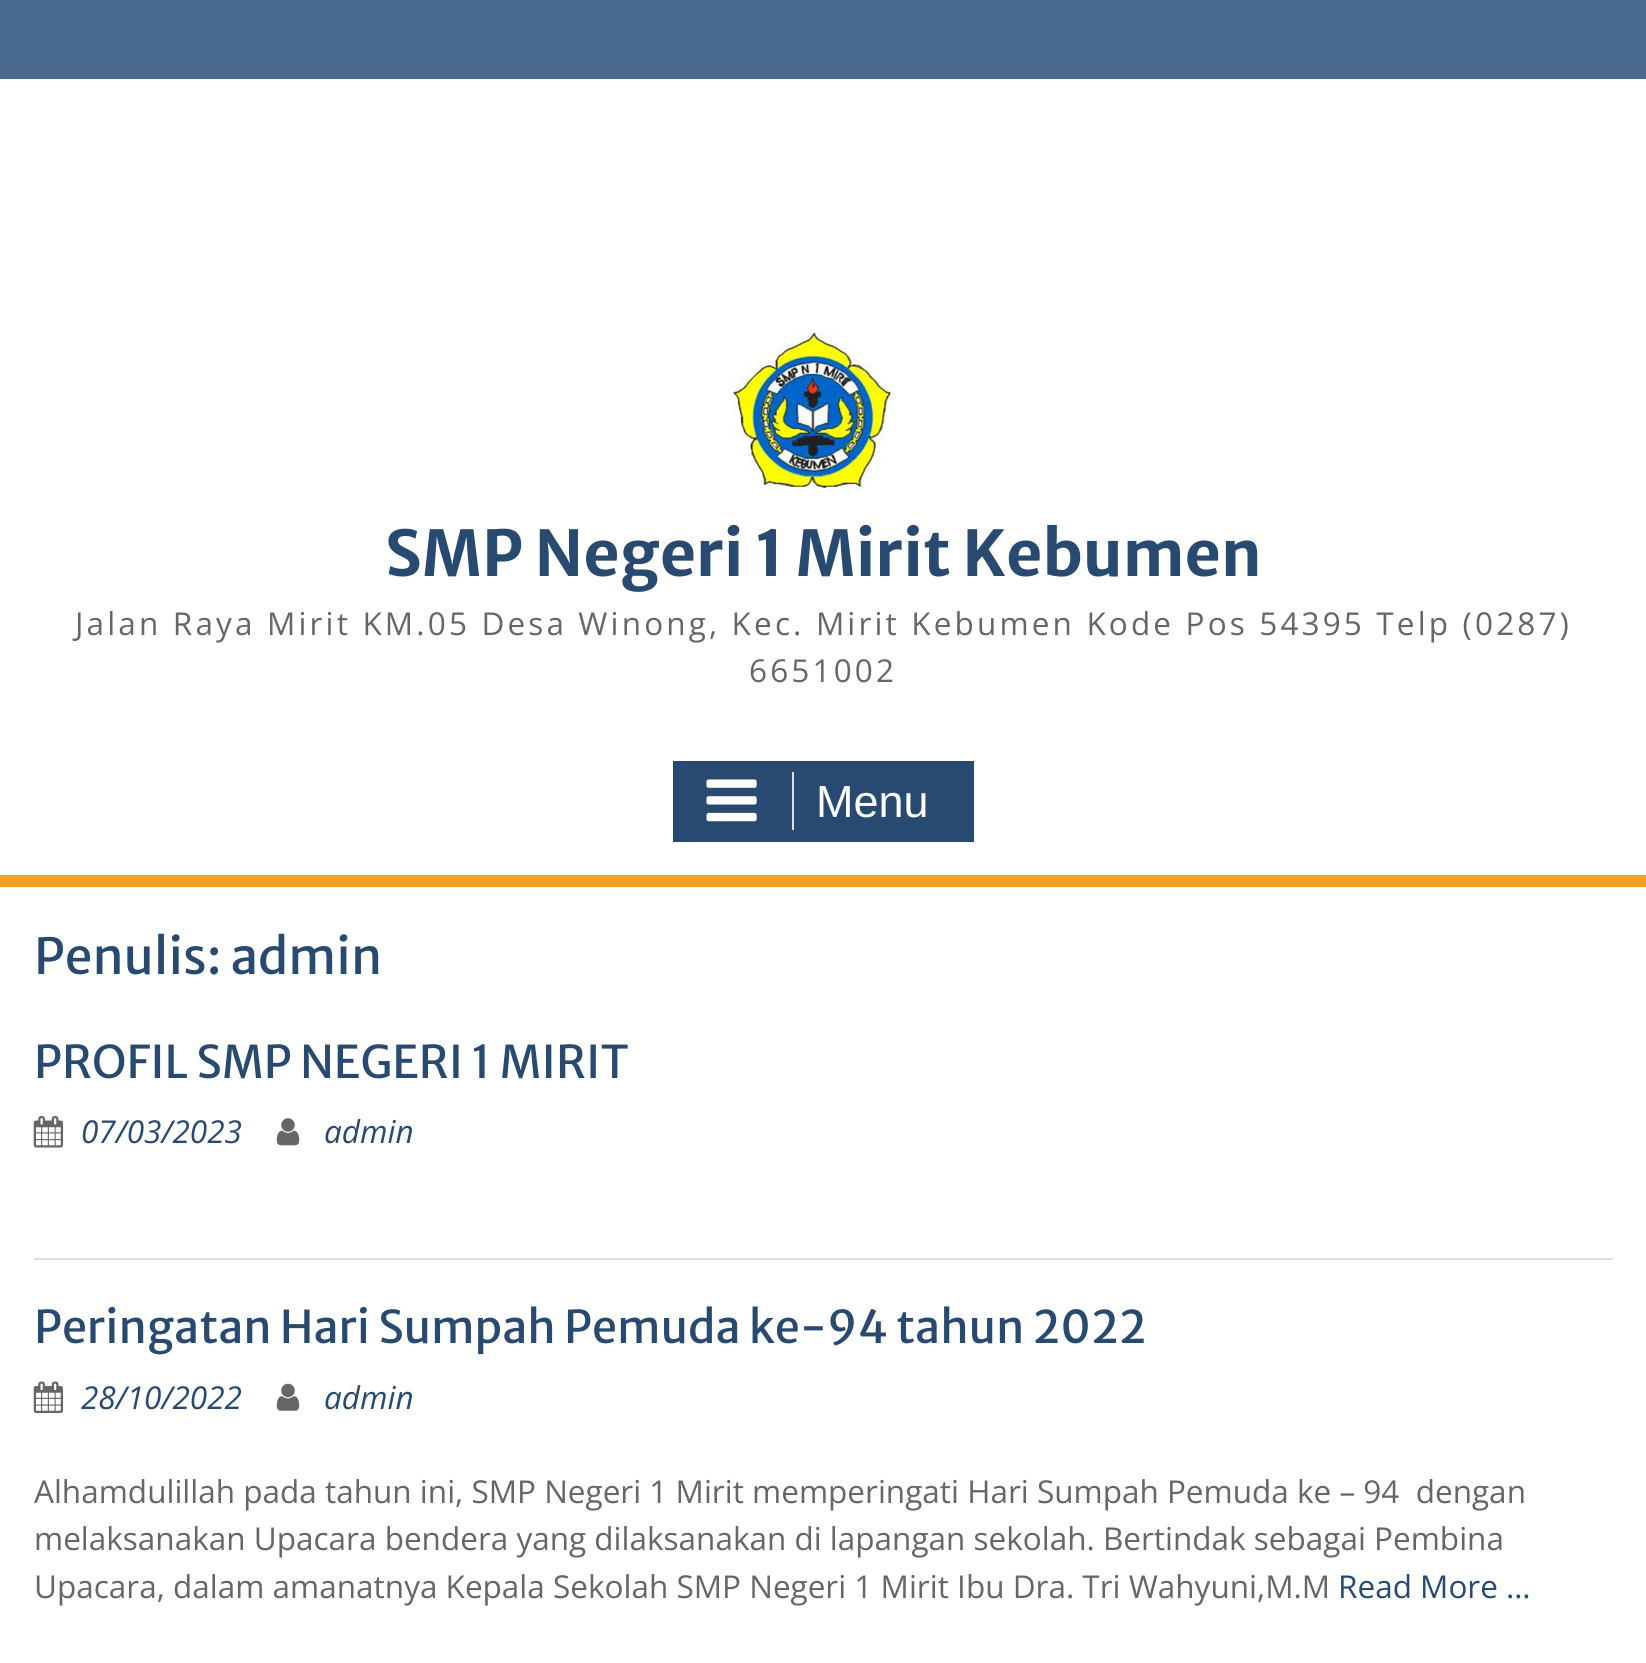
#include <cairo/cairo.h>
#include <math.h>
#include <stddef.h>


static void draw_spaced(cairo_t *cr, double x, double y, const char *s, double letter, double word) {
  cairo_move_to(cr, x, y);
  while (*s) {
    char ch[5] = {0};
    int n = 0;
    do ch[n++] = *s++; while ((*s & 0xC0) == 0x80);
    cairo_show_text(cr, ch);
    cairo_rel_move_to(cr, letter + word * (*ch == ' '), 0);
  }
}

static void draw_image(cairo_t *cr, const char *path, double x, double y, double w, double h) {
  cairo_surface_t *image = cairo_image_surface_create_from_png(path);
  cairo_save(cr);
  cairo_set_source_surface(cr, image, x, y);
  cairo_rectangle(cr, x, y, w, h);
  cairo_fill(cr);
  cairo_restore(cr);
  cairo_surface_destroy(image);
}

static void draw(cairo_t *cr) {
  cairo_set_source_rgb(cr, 1, 1, 1);
  cairo_paint(cr);
  cairo_set_source_rgb(cr, 73 / 255.0, 104 / 255.0, 142 / 255.0);
  cairo_rectangle(cr, 0, 0, 1646, 79);
  cairo_fill(cr);
  draw_image(cr, "images/1.png", 732, 332, 162, 158);
  cairo_set_source_rgb(cr, 244 / 255.0, 160 / 255.0, 36 / 255.0);
  cairo_rectangle(cr, 0, 875, 1646, 12);
  cairo_fill(cr);
  cairo_set_source_rgb(cr, 41 / 255.0, 74 / 255.0, 112 / 255.0);
  cairo_rectangle(cr, 673, 761, 301, 81);
  cairo_fill(cr);
  cairo_set_source_rgb(cr, 221 / 255.0, 221 / 255.0, 221 / 255.0);
  cairo_rectangle(cr, 792, 772, 2, 58);
  cairo_fill(cr);
  draw_image(cr, "images/2.png", 706, 779, 51, 43);
  cairo_rectangle(cr, 34, 1258, 1579, 2);
  cairo_fill(cr);
  draw_image(cr, "images/3.png", 33, 1116, 30, 32);
  draw_image(cr, "images/4.png", 276, 1118, 24, 28);
  draw_image(cr, "images/5.png", 33, 1381, 30, 32);
  draw_image(cr, "images/6.png", 276, 1383, 24, 28);
  cairo_select_font_face(cr, "Merriweather Sans", CAIRO_FONT_SLANT_NORMAL, CAIRO_FONT_WEIGHT_BOLD);
  cairo_set_font_size(cr, 63);
  cairo_set_source_rgb(cr, 41 / 255.0, 74 / 255.0, 112 / 255.0);
  cairo_move_to(cr, 385, 576);
  cairo_show_text(cr, "SMP Negeri 1 Mirit Kebumen");
  cairo_select_font_face(cr, "Open Sans", CAIRO_FONT_SLANT_NORMAL, CAIRO_FONT_WEIGHT_NORMAL);
  cairo_set_font_size(cr, 31.5);
  cairo_set_source_rgb(cr, 102 / 255.0, 102 / 255.0, 102 / 255.0);
  draw_spaced(cr, 75, 635, "Jalan Raya Mirit KM.05 Desa Winong, Kec. Mirit Kebumen Kode Pos 54395 Telp (0287)", 3.15, 0);
  draw_spaced(cr, 749, 682, "6651002", 3.15, 0);
  cairo_select_font_face(cr, "Liberation Sans", CAIRO_FONT_SLANT_NORMAL, CAIRO_FONT_WEIGHT_NORMAL);
  cairo_set_font_size(cr, 45);
  cairo_set_source_rgb(cr, 1, 1, 1);
  cairo_move_to(cr, 816, 817);
  cairo_show_text(cr, "Menu");
  cairo_select_font_face(cr, "Merriweather Sans", CAIRO_FONT_SLANT_NORMAL, CAIRO_FONT_WEIGHT_NORMAL);
  cairo_set_font_size(cr, 49.5);
  cairo_set_source_rgb(cr, 41 / 255.0, 74 / 255.0, 112 / 255.0);
  cairo_move_to(cr, 34, 974);
  cairo_show_text(cr, "Penulis: admin");
  cairo_set_font_size(cr, 45);
  cairo_move_to(cr, 34, 1078);
  cairo_show_text(cr, "PROFIL SMP NEGERI 1 MIRIT");
  cairo_select_font_face(cr, "Open Sans", CAIRO_FONT_SLANT_ITALIC, CAIRO_FONT_WEIGHT_NORMAL);
  cairo_set_font_size(cr, 31.5);
  cairo_move_to(cr, 81, 1143);
  cairo_show_text(cr, "07/03/2023");
  cairo_move_to(cr, 324, 1143);
  cairo_show_text(cr, "admin");
  cairo_select_font_face(cr, "Merriweather Sans", CAIRO_FONT_SLANT_NORMAL, CAIRO_FONT_WEIGHT_NORMAL);
  cairo_set_font_size(cr, 45);
  cairo_move_to(cr, 34, 1343);
  cairo_show_text(cr, "Peringatan Hari Sumpah Pemuda ke-94 tahun 2022");
  cairo_select_font_face(cr, "Open Sans", CAIRO_FONT_SLANT_ITALIC, CAIRO_FONT_WEIGHT_NORMAL);
  cairo_set_font_size(cr, 31.5);
  cairo_move_to(cr, 81, 1409);
  cairo_show_text(cr, "28/10/2022");
  cairo_move_to(cr, 324, 1409);
  cairo_show_text(cr, "admin");
  cairo_select_font_face(cr, "Open Sans", CAIRO_FONT_SLANT_NORMAL, CAIRO_FONT_WEIGHT_NORMAL);
  cairo_set_source_rgb(cr, 102 / 255.0, 102 / 255.0, 102 / 255.0);
  cairo_move_to(cr, 34, 1503);
  cairo_show_text(cr, "Alhamdulillah pada tahun ini, SMP Negeri 1 Mirit memperingati Hari Sumpah Pemuda ke – 94  dengan");
  cairo_move_to(cr, 34, 1550);
  cairo_show_text(cr, "melaksanakan Upacara bendera yang dilaksanakan di lapangan sekolah. Bertindak sebagai Pembina");
  cairo_move_to(cr, 34, 1598);
  cairo_show_text(cr, "Upacara, dalam amanatnya Kepala Sekolah SMP Negeri 1 Mirit Ibu Dra. Tri Wahyuni,M.M");
  cairo_set_source_rgb(cr, 41 / 255.0, 74 / 255.0, 112 / 255.0);
  cairo_move_to(cr, 1338, 1598);
  cairo_show_text(cr, "Read More …");
}

int main(void) {
  cairo_surface_t *surface = cairo_image_surface_create(CAIRO_FORMAT_RGB24, 1646, 1663);
  cairo_t *cr = cairo_create(surface);
  cairo_font_options_t *options = cairo_font_options_create();
  cairo_font_options_set_hint_metrics(options, CAIRO_HINT_METRICS_OFF);
  cairo_font_options_set_hint_style(options, CAIRO_HINT_STYLE_NONE);
  cairo_set_font_options(cr, options);
  cairo_set_miter_limit(cr, 4);
  draw(cr);
  cairo_surface_write_to_png(surface, "out.png");
  cairo_font_options_destroy(options);
  cairo_destroy(cr);
  cairo_surface_destroy(surface);
  return 0;
}
